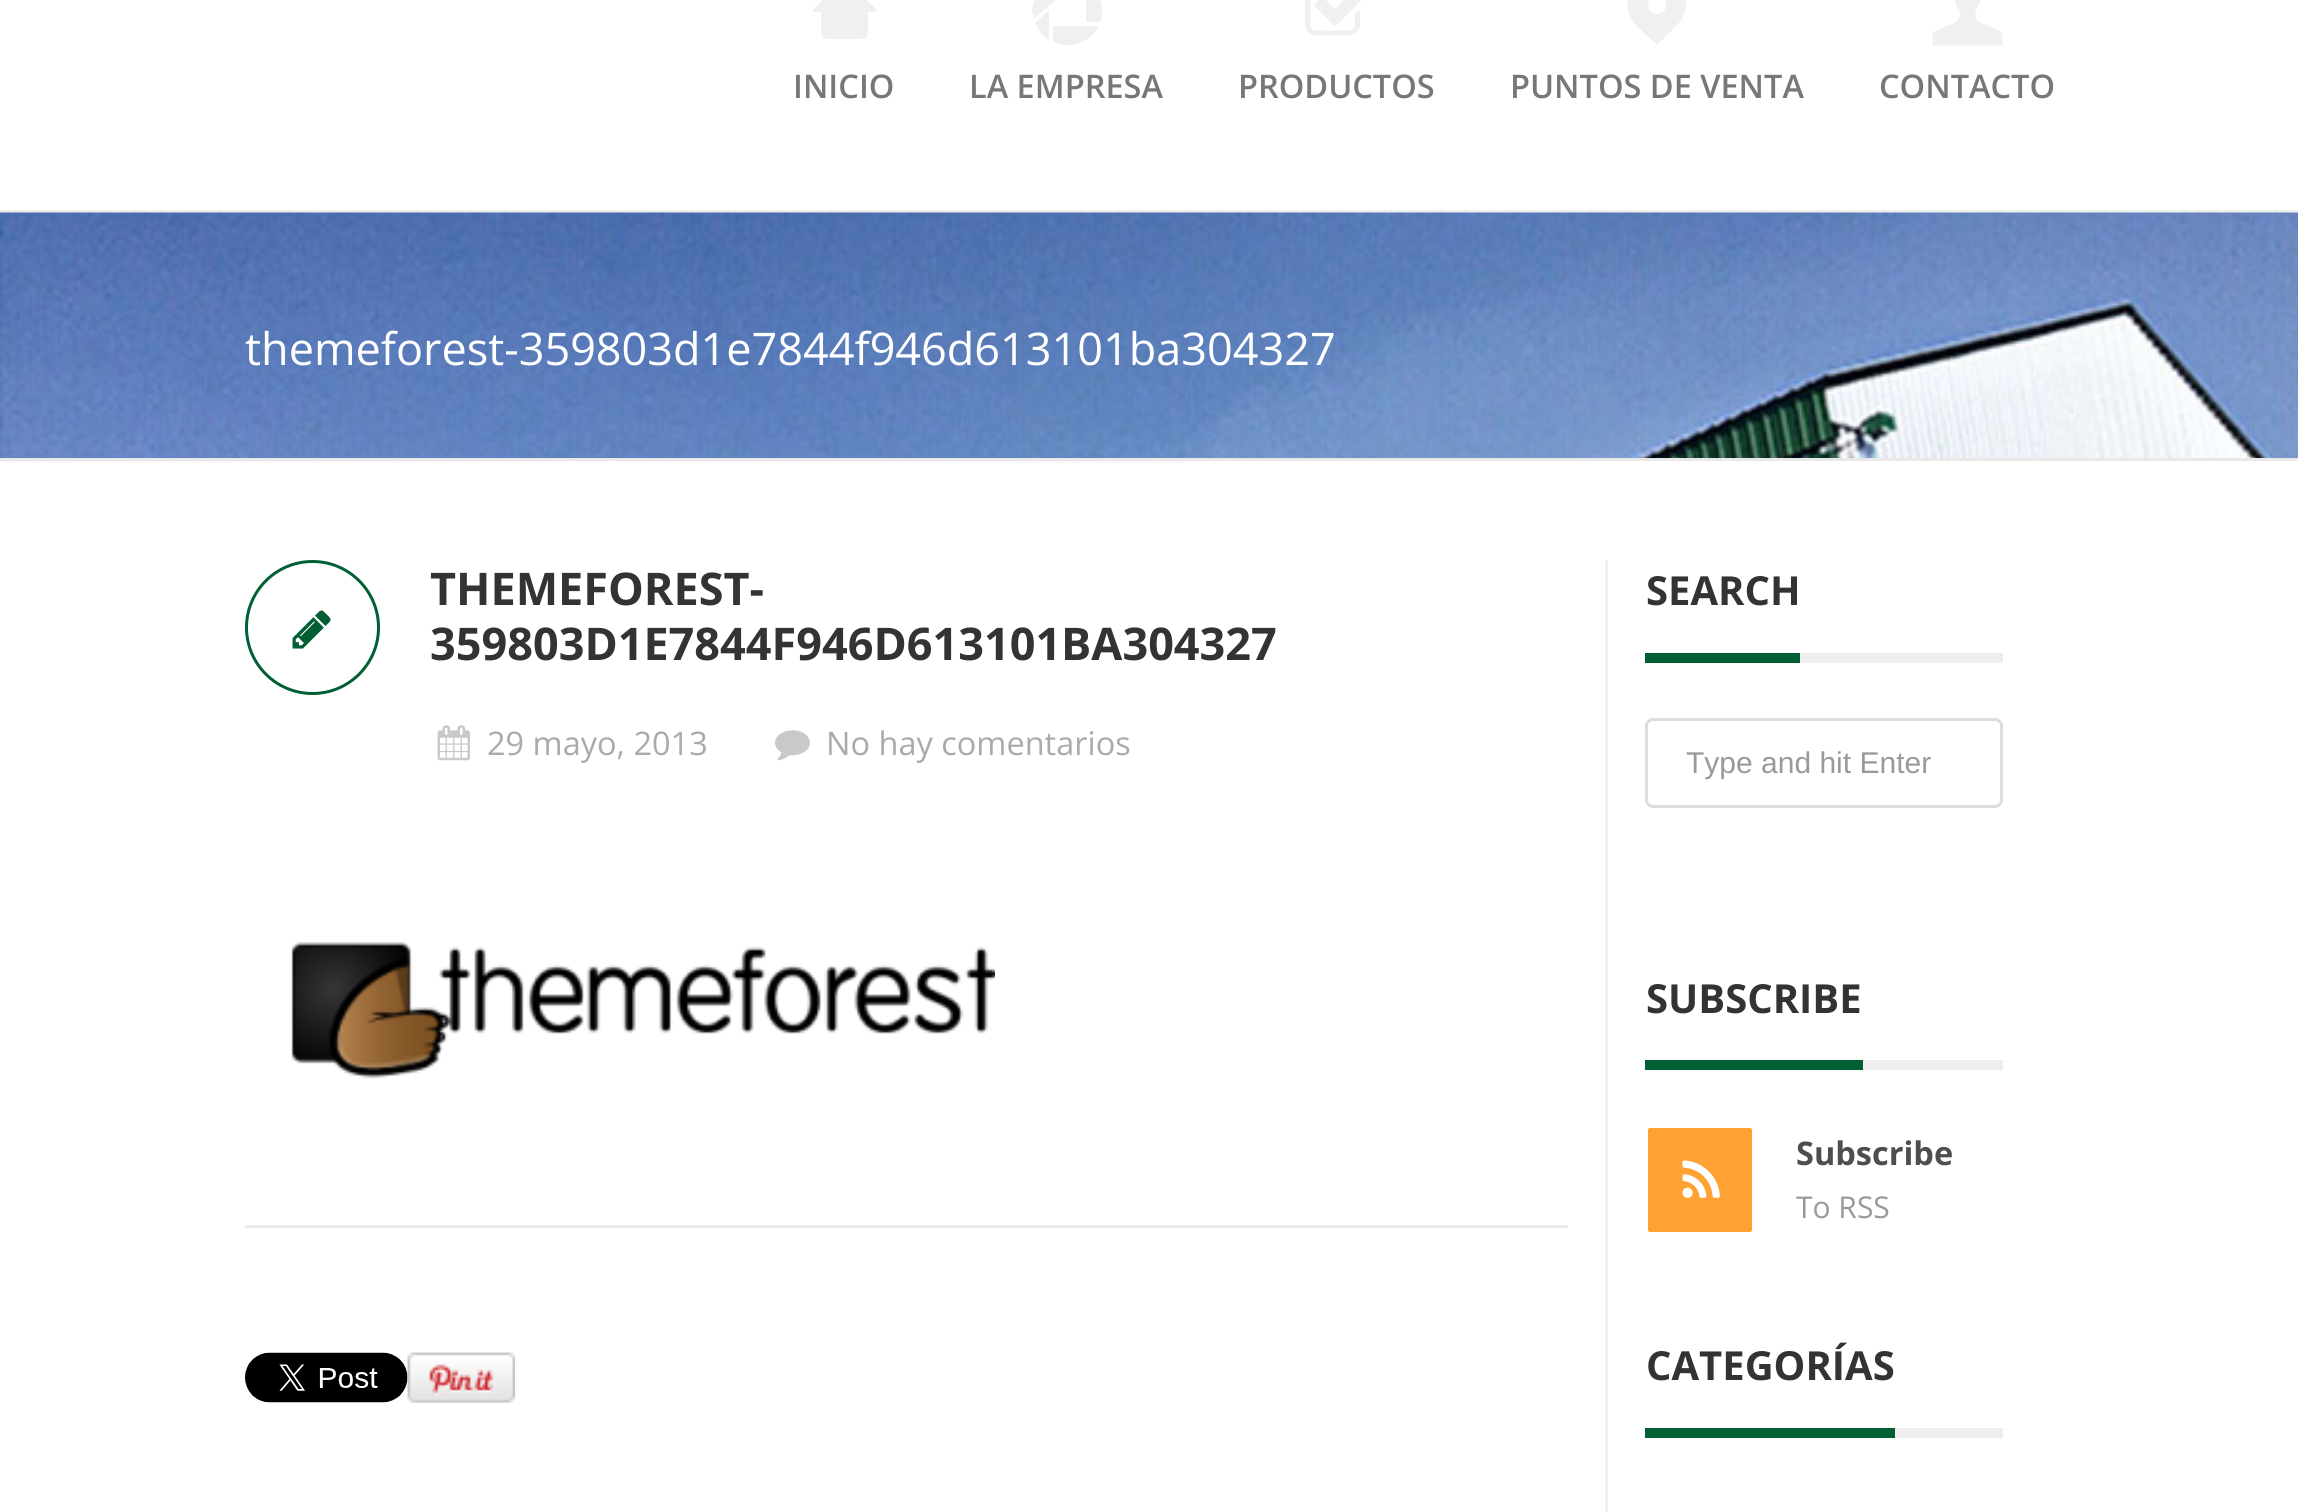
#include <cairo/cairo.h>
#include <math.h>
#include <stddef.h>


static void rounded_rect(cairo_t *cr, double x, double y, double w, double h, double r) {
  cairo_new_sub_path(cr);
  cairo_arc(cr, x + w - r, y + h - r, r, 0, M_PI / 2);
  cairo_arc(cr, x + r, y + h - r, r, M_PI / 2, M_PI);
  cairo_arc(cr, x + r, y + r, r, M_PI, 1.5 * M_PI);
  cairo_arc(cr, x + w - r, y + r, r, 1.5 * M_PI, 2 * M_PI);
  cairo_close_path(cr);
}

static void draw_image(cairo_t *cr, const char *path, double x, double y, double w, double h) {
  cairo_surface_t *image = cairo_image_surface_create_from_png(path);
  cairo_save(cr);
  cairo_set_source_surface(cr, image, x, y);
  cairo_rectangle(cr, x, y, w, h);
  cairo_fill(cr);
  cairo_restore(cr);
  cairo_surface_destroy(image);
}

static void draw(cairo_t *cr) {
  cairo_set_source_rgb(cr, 1, 1, 1);
  cairo_paint(cr);
  cairo_set_source_rgb(cr, 240 / 255.0, 240 / 255.0, 240 / 255.0);
  cairo_new_path(cr);
  cairo_move_to(cr, 815, 12);
  cairo_curve_to(cr, 808, 12, 815, 8, 832, -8);
  cairo_line_to(cr, 836, -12);
  cairo_curve_to(cr, 839, -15, 843, -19, 848, -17);
  cairo_line_to(cr, 876, 9);
  cairo_curve_to(cr, 876, 10, 877, 12, 876, 12);
  cairo_line_to(cr, 868, 12);
  cairo_line_to(cr, 868, 30);
  cairo_curve_to(cr, 868, 39, 866, 39, 857, 39);
  cairo_line_to(cr, 833, 39);
  cairo_curve_to(cr, 824, 39, 821, 39, 821, 30);
  cairo_line_to(cr, 821, 12);
  cairo_close_path(cr);
  cairo_fill(cr);
  cairo_new_path(cr);
  cairo_move_to(cr, 1032, 11);
  cairo_curve_to(cr, 1033, -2, 1040, -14, 1051, -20);
  cairo_line_to(cr, 1065, -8);
  cairo_line_to(cr, 1034, 19);
  cairo_close_path(cr);
  cairo_move_to(cr, 1035, 23);
  cairo_line_to(cr, 1049, 10);
  cairo_line_to(cr, 1049, 40);
  cairo_curve_to(cr, 1043, 36, 1038, 30, 1035, 23);
  cairo_close_path(cr);
  cairo_move_to(cr, 1053, 42);
  cairo_line_to(cr, 1053, 26);
  cairo_line_to(cr, 1099, 26);
  cairo_curve_to(cr, 1091, 42, 1070, 50, 1053, 42);
  cairo_close_path(cr);
  cairo_move_to(cr, 1055, -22);
  cairo_curve_to(cr, 1064, -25, 1073, -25, 1082, -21);
  cairo_line_to(cr, 1082, 2);
  cairo_close_path(cr);
  cairo_move_to(cr, 1086, 22);
  cairo_line_to(cr, 1086, -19);
  cairo_curve_to(cr, 1099, -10, 1106, 7, 1100, 22);
  cairo_close_path(cr);
  cairo_fill(cr);
  draw_image(cr, "images/1.png", 1305, 0, 57, 36);
  cairo_new_path(cr);
  cairo_move_to(cr, 1677, -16);
  cairo_curve_to(cr, 1683, -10, 1686, -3, 1686, 5);
  cairo_curve_to(cr, 1686, 12, 1683, 19, 1677, 25);
  cairo_line_to(cr, 1657, 45);
  cairo_line_to(cr, 1643, 32);
  cairo_curve_to(cr, 1638, 27, 1632, 22, 1630, 16);
  cairo_curve_to(cr, 1617, -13, 1655, -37, 1677, -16);
  cairo_close_path(cr);
  cairo_move_to(cr, 1657, 14);
  cairo_curve_to(cr, 1669, 14, 1669, -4, 1657, -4);
  cairo_curve_to(cr, 1645, -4, 1645, 14, 1657, 14);
  cairo_close_path(cr);
  cairo_fill(cr);
  draw_image(cr, "images/2.png", 1932, 0, 71, 46);
  cairo_set_source_rgb(cr, 238 / 255.0, 238 / 255.0, 238 / 255.0);
  cairo_rectangle(cr, 0, 210, 2298, 3);
  cairo_fill(cr);
  draw_image(cr, "images/3.png", 0, 212, 2298, 246);
  cairo_set_source_rgb(cr, 233 / 255.0, 233 / 255.0, 233 / 255.0);
  cairo_rectangle(cr, 0, 458, 2298, 3);
  cairo_fill(cr);
  cairo_set_source_rgb(cr, 241 / 255.0, 241 / 255.0, 241 / 255.0);
  cairo_rectangle(cr, 1605, 560, 3, 952);
  cairo_fill(cr);
  cairo_arc(cr, 312.5, 627.5, 66, 0, 2 * M_PI);
  cairo_set_source_rgb(cr, 0, 95 / 255.0, 51 / 255.0);
  cairo_set_line_width(cr, 3);
  cairo_stroke(cr);
  draw_image(cr, "images/4.png", 292, 610, 39, 39);
  draw_image(cr, "images/5.png", 437, 725, 33, 36);
  draw_image(cr, "images/6.png", 775, 730, 35, 31);
  draw_image(cr, "images/7.png", 291, 942, 704, 137);
  cairo_set_source_rgb(cr, 236 / 255.0, 236 / 255.0, 236 / 255.0);
  cairo_rectangle(cr, 245, 1225, 1323, 3);
  cairo_fill(cr);
  draw_image(cr, "images/9.png", 407, 1352, 108, 52);
  draw_image(cr, "images/8.png", 245, 1352, 163, 51);
  cairo_set_source_rgb(cr, 238 / 255.0, 238 / 255.0, 238 / 255.0);
  cairo_rectangle(cr, 1800, 653, 203, 10);
  cairo_fill(cr);
  cairo_set_source_rgb(cr, 0, 95 / 255.0, 51 / 255.0);
  cairo_rectangle(cr, 1645, 653, 155, 10);
  cairo_fill(cr);
  rounded_rect(cr, 1646.5, 719.5, 355, 87, 6.5);
  cairo_set_source_rgb(cr, 221 / 255.0, 221 / 255.0, 221 / 255.0);
  cairo_stroke(cr);
  cairo_set_source_rgb(cr, 238 / 255.0, 238 / 255.0, 238 / 255.0);
  cairo_rectangle(cr, 1863, 1060, 140, 10);
  cairo_fill(cr);
  cairo_set_source_rgb(cr, 0, 95 / 255.0, 51 / 255.0);
  cairo_rectangle(cr, 1645, 1060, 218, 10);
  cairo_fill(cr);
  cairo_set_source_rgb(cr, 1, 161 / 255.0, 51 / 255.0);
  rounded_rect(cr, 1646.5, 1126.5, 107, 107, 3.5);
  cairo_fill_preserve(cr);
  cairo_set_source_rgb(cr, 1, 1, 1);
  cairo_stroke(cr);
  draw_image(cr, "images/10.png", 1682, 1160, 38, 38);
  cairo_set_source_rgb(cr, 238 / 255.0, 238 / 255.0, 238 / 255.0);
  cairo_rectangle(cr, 1895, 1428, 108, 10);
  cairo_fill(cr);
  cairo_set_source_rgb(cr, 0, 95 / 255.0, 51 / 255.0);
  cairo_rectangle(cr, 1645, 1428, 250, 10);
  cairo_fill(cr);
  cairo_select_font_face(cr, "Open Sans SemiBold", CAIRO_FONT_SLANT_NORMAL, CAIRO_FONT_WEIGHT_NORMAL);
  cairo_set_font_size(cr, 32.5);
  cairo_set_source_rgb(cr, 119 / 255.0, 119 / 255.0, 119 / 255.0);
  cairo_move_to(cr, 793, 98);
  cairo_show_text(cr, "INICIO");
  cairo_move_to(cr, 969, 98);
  cairo_show_text(cr, "LA EMPRESA");
  cairo_move_to(cr, 1238, 98);
  cairo_show_text(cr, "PRODUCTOS");
  cairo_move_to(cr, 1510, 98);
  cairo_show_text(cr, "PUNTOS DE VENTA");
  cairo_move_to(cr, 1879, 98);
  cairo_show_text(cr, "CONTACTO");
  cairo_select_font_face(cr, "Open Sans", CAIRO_FONT_SLANT_NORMAL, CAIRO_FONT_WEIGHT_NORMAL);
  cairo_set_font_size(cr, 45);
  cairo_set_source_rgb(cr, 1, 1, 1);
  cairo_move_to(cr, 245, 365);
  cairo_show_text(cr, "themeforest-359803d1e7844f946d613101ba304327");
  cairo_select_font_face(cr, "Open Sans", CAIRO_FONT_SLANT_NORMAL, CAIRO_FONT_WEIGHT_BOLD);
  cairo_set_source_rgb(cr, 51 / 255.0, 51 / 255.0, 51 / 255.0);
  cairo_move_to(cr, 430, 605);
  cairo_show_text(cr, "THEMEFOREST-");
  cairo_move_to(cr, 430, 660);
  cairo_show_text(cr, "359803D1E7844F946D613101BA304327");
  cairo_select_font_face(cr, "Open Sans", CAIRO_FONT_SLANT_NORMAL, CAIRO_FONT_WEIGHT_NORMAL);
  cairo_set_font_size(cr, 32.5);
  cairo_set_source_rgb(cr, 170 / 255.0, 170 / 255.0, 170 / 255.0);
  cairo_move_to(cr, 487, 755);
  cairo_show_text(cr, "29 mayo, 2013");
  cairo_move_to(cr, 826, 755);
  cairo_show_text(cr, "No hay comentarios");
  cairo_select_font_face(cr, "Open Sans", CAIRO_FONT_SLANT_NORMAL, CAIRO_FONT_WEIGHT_BOLD);
  cairo_set_font_size(cr, 40);
  cairo_set_source_rgb(cr, 51 / 255.0, 51 / 255.0, 51 / 255.0);
  cairo_move_to(cr, 1646, 605);
  cairo_show_text(cr, "SEARCH");
  cairo_select_font_face(cr, "Liberation Sans", CAIRO_FONT_SLANT_NORMAL, CAIRO_FONT_WEIGHT_NORMAL);
  cairo_set_font_size(cr, 30);
  cairo_set_source_rgb(cr, 153 / 255.0, 153 / 255.0, 153 / 255.0);
  cairo_move_to(cr, 1686, 773);
  cairo_show_text(cr, "Type and hit Enter");
  cairo_select_font_face(cr, "Open Sans", CAIRO_FONT_SLANT_NORMAL, CAIRO_FONT_WEIGHT_BOLD);
  cairo_set_font_size(cr, 40);
  cairo_set_source_rgb(cr, 51 / 255.0, 51 / 255.0, 51 / 255.0);
  cairo_move_to(cr, 1646, 1013);
  cairo_show_text(cr, "SUBSCRIBE");
  cairo_set_font_size(cr, 32.5);
  cairo_set_source_rgb(cr, 78 / 255.0, 78 / 255.0, 78 / 255.0);
  cairo_move_to(cr, 1796, 1165);
  cairo_show_text(cr, "Subscribe");
  cairo_select_font_face(cr, "Open Sans", CAIRO_FONT_SLANT_NORMAL, CAIRO_FONT_WEIGHT_NORMAL);
  cairo_set_font_size(cr, 30);
  cairo_set_source_rgb(cr, 153 / 255.0, 153 / 255.0, 153 / 255.0);
  cairo_move_to(cr, 1796, 1218);
  cairo_show_text(cr, "To RSS");
  cairo_select_font_face(cr, "Open Sans", CAIRO_FONT_SLANT_NORMAL, CAIRO_FONT_WEIGHT_BOLD);
  cairo_set_font_size(cr, 40);
  cairo_set_source_rgb(cr, 51 / 255.0, 51 / 255.0, 51 / 255.0);
  cairo_move_to(cr, 1646, 1380);
  cairo_show_text(cr, "CATEGORÍAS");
}

int main(void) {
  cairo_surface_t *surface = cairo_image_surface_create(CAIRO_FORMAT_RGB24, 2298, 1512);
  cairo_t *cr = cairo_create(surface);
  cairo_font_options_t *options = cairo_font_options_create();
  cairo_font_options_set_hint_metrics(options, CAIRO_HINT_METRICS_OFF);
  cairo_font_options_set_hint_style(options, CAIRO_HINT_STYLE_NONE);
  cairo_set_font_options(cr, options);
  cairo_set_miter_limit(cr, 4);
  draw(cr);
  cairo_surface_write_to_png(surface, "out.png");
  cairo_font_options_destroy(options);
  cairo_destroy(cr);
  cairo_surface_destroy(surface);
  return 0;
}
